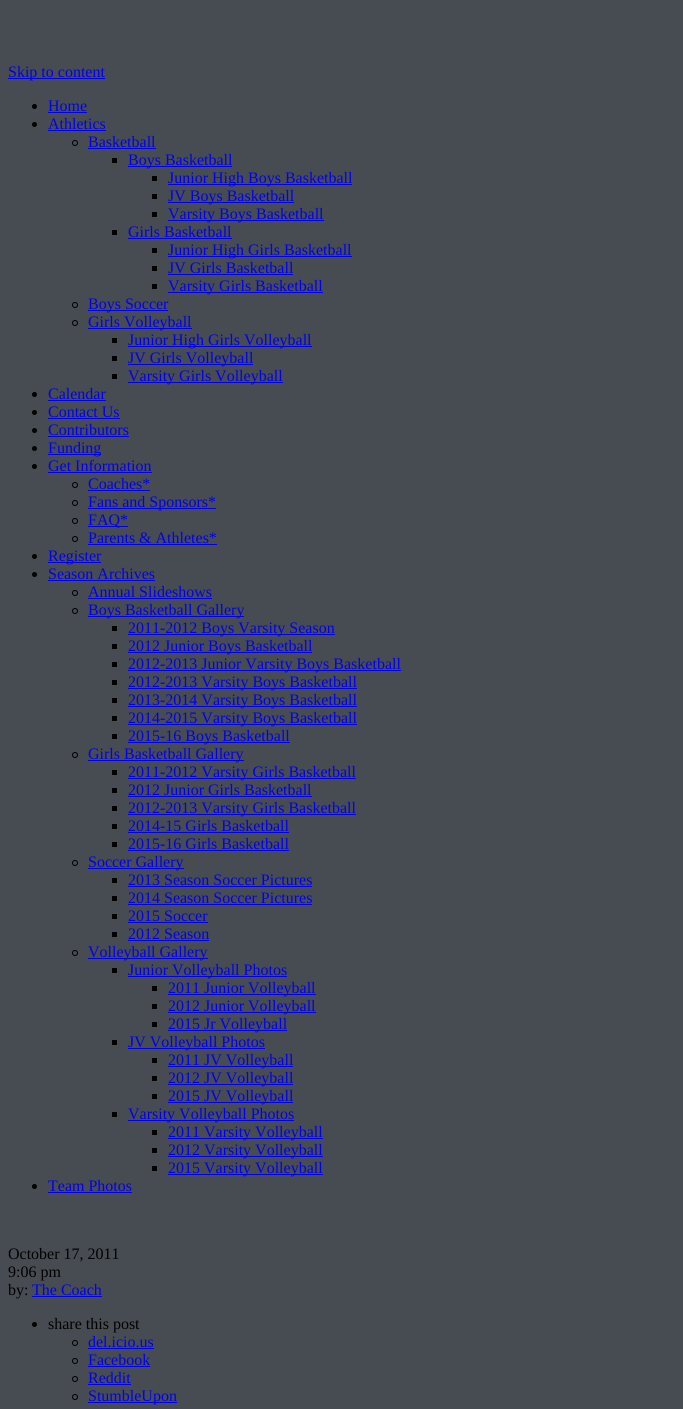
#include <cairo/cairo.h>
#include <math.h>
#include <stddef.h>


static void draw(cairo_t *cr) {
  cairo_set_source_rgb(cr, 71 / 255.0, 76 / 255.0, 82 / 255.0);
  cairo_paint(cr);
  cairo_set_source_rgb(cr, 0, 0, 238 / 255.0);
  cairo_rectangle(cr, 8, 78, 97, 1);
  cairo_fill(cr);
  cairo_set_source_rgb(cr, 0, 0, 0);
  cairo_arc(cr, 34.5, 106.5, 2.5, 0, 2 * M_PI);
  cairo_fill(cr);
  cairo_set_source_rgb(cr, 0, 0, 238 / 255.0);
  cairo_rectangle(cr, 48, 112, 39, 1);
  cairo_fill(cr);
  cairo_set_source_rgb(cr, 0, 0, 0);
  cairo_arc(cr, 34.5, 124.5, 2.5, 0, 2 * M_PI);
  cairo_fill(cr);
  cairo_set_source_rgb(cr, 0, 0, 238 / 255.0);
  cairo_rectangle(cr, 48, 130, 58, 1);
  cairo_fill(cr);
  cairo_arc(cr, 75, 143, 2.5, 0, 2 * M_PI);
  cairo_set_source_rgb(cr, 0, 0, 0);
  cairo_set_line_width(cr, 1);
  cairo_stroke(cr);
  cairo_set_source_rgb(cr, 0, 0, 238 / 255.0);
  cairo_rectangle(cr, 88, 148, 68, 1);
  cairo_fill(cr);
  cairo_set_source_rgb(cr, 0, 0, 0);
  cairo_rectangle(cr, 112, 158, 5, 5);
  cairo_fill(cr);
  cairo_set_source_rgb(cr, 0, 0, 238 / 255.0);
  cairo_rectangle(cr, 128, 166, 104, 1);
  cairo_fill(cr);
  cairo_set_source_rgb(cr, 0, 0, 0);
  cairo_rectangle(cr, 152, 176, 5, 5);
  cairo_fill(cr);
  cairo_set_source_rgb(cr, 0, 0, 238 / 255.0);
  cairo_rectangle(cr, 168, 184, 184, 1);
  cairo_fill(cr);
  cairo_set_source_rgb(cr, 0, 0, 0);
  cairo_rectangle(cr, 152, 194, 5, 5);
  cairo_fill(cr);
  cairo_set_source_rgb(cr, 0, 0, 238 / 255.0);
  cairo_rectangle(cr, 168, 202, 126, 1);
  cairo_fill(cr);
  cairo_set_source_rgb(cr, 0, 0, 0);
  cairo_rectangle(cr, 152, 212, 5, 5);
  cairo_fill(cr);
  cairo_set_source_rgb(cr, 0, 0, 238 / 255.0);
  cairo_rectangle(cr, 168, 220, 156, 1);
  cairo_fill(cr);
  cairo_set_source_rgb(cr, 0, 0, 0);
  cairo_rectangle(cr, 112, 230, 5, 5);
  cairo_fill(cr);
  cairo_set_source_rgb(cr, 0, 0, 238 / 255.0);
  cairo_rectangle(cr, 128, 238, 104, 1);
  cairo_fill(cr);
  cairo_set_source_rgb(cr, 0, 0, 0);
  cairo_rectangle(cr, 152, 248, 5, 5);
  cairo_fill(cr);
  cairo_set_source_rgb(cr, 0, 0, 238 / 255.0);
  cairo_rectangle(cr, 168, 256, 184, 1);
  cairo_fill(cr);
  cairo_set_source_rgb(cr, 0, 0, 0);
  cairo_rectangle(cr, 152, 266, 5, 5);
  cairo_fill(cr);
  cairo_set_source_rgb(cr, 0, 0, 238 / 255.0);
  cairo_rectangle(cr, 168, 274, 125, 1);
  cairo_fill(cr);
  cairo_set_source_rgb(cr, 0, 0, 0);
  cairo_rectangle(cr, 152, 284, 5, 5);
  cairo_fill(cr);
  cairo_set_source_rgb(cr, 0, 0, 238 / 255.0);
  cairo_rectangle(cr, 168, 292, 155, 1);
  cairo_fill(cr);
  cairo_arc(cr, 75, 305, 2.5, 0, 2 * M_PI);
  cairo_set_source_rgb(cr, 0, 0, 0);
  cairo_stroke(cr);
  cairo_set_source_rgb(cr, 0, 0, 238 / 255.0);
  cairo_rectangle(cr, 88, 310, 80, 1);
  cairo_fill(cr);
  cairo_arc(cr, 75, 323, 2.5, 0, 2 * M_PI);
  cairo_set_source_rgb(cr, 0, 0, 0);
  cairo_stroke(cr);
  cairo_set_source_rgb(cr, 0, 0, 238 / 255.0);
  cairo_rectangle(cr, 88, 328, 104, 1);
  cairo_fill(cr);
  cairo_set_source_rgb(cr, 0, 0, 0);
  cairo_rectangle(cr, 112, 338, 5, 5);
  cairo_fill(cr);
  cairo_set_source_rgb(cr, 0, 0, 238 / 255.0);
  cairo_rectangle(cr, 128, 346, 184, 1);
  cairo_fill(cr);
  cairo_set_source_rgb(cr, 0, 0, 0);
  cairo_rectangle(cr, 112, 356, 5, 5);
  cairo_fill(cr);
  cairo_set_source_rgb(cr, 0, 0, 238 / 255.0);
  cairo_rectangle(cr, 128, 364, 125, 1);
  cairo_fill(cr);
  cairo_set_source_rgb(cr, 0, 0, 0);
  cairo_rectangle(cr, 112, 374, 5, 5);
  cairo_fill(cr);
  cairo_set_source_rgb(cr, 0, 0, 238 / 255.0);
  cairo_rectangle(cr, 128, 382, 155, 1);
  cairo_fill(cr);
  cairo_set_source_rgb(cr, 0, 0, 0);
  cairo_arc(cr, 34.5, 394.5, 2.5, 0, 2 * M_PI);
  cairo_fill(cr);
  cairo_set_source_rgb(cr, 0, 0, 238 / 255.0);
  cairo_rectangle(cr, 48, 400, 58, 1);
  cairo_fill(cr);
  cairo_set_source_rgb(cr, 0, 0, 0);
  cairo_arc(cr, 34.5, 412.5, 2.5, 0, 2 * M_PI);
  cairo_fill(cr);
  cairo_set_source_rgb(cr, 0, 0, 238 / 255.0);
  cairo_rectangle(cr, 48, 418, 72, 1);
  cairo_fill(cr);
  cairo_set_source_rgb(cr, 0, 0, 0);
  cairo_arc(cr, 34.5, 430.5, 2.5, 0, 2 * M_PI);
  cairo_fill(cr);
  cairo_set_source_rgb(cr, 0, 0, 238 / 255.0);
  cairo_rectangle(cr, 48, 436, 81, 1);
  cairo_fill(cr);
  cairo_set_source_rgb(cr, 0, 0, 0);
  cairo_arc(cr, 34.5, 448.5, 2.5, 0, 2 * M_PI);
  cairo_fill(cr);
  cairo_set_source_rgb(cr, 0, 0, 238 / 255.0);
  cairo_rectangle(cr, 48, 454, 53, 1);
  cairo_fill(cr);
  cairo_set_source_rgb(cr, 0, 0, 0);
  cairo_arc(cr, 34.5, 466.5, 2.5, 0, 2 * M_PI);
  cairo_fill(cr);
  cairo_set_source_rgb(cr, 0, 0, 238 / 255.0);
  cairo_rectangle(cr, 48, 472, 104, 1);
  cairo_fill(cr);
  cairo_arc(cr, 75, 485, 2.5, 0, 2 * M_PI);
  cairo_set_source_rgb(cr, 0, 0, 0);
  cairo_stroke(cr);
  cairo_set_source_rgb(cr, 0, 0, 238 / 255.0);
  cairo_rectangle(cr, 88, 490, 62, 1);
  cairo_fill(cr);
  cairo_arc(cr, 75, 503, 2.5, 0, 2 * M_PI);
  cairo_set_source_rgb(cr, 0, 0, 0);
  cairo_stroke(cr);
  cairo_set_source_rgb(cr, 0, 0, 238 / 255.0);
  cairo_rectangle(cr, 88, 508, 128, 1);
  cairo_fill(cr);
  cairo_arc(cr, 75, 521, 2.5, 0, 2 * M_PI);
  cairo_set_source_rgb(cr, 0, 0, 0);
  cairo_stroke(cr);
  cairo_set_source_rgb(cr, 0, 0, 238 / 255.0);
  cairo_rectangle(cr, 88, 526, 40, 1);
  cairo_fill(cr);
  cairo_arc(cr, 75, 539, 2.5, 0, 2 * M_PI);
  cairo_set_source_rgb(cr, 0, 0, 0);
  cairo_stroke(cr);
  cairo_set_source_rgb(cr, 0, 0, 238 / 255.0);
  cairo_rectangle(cr, 88, 544, 129, 1);
  cairo_fill(cr);
  cairo_set_source_rgb(cr, 0, 0, 0);
  cairo_arc(cr, 34.5, 556.5, 2.5, 0, 2 * M_PI);
  cairo_fill(cr);
  cairo_set_source_rgb(cr, 0, 0, 238 / 255.0);
  cairo_rectangle(cr, 48, 562, 53, 1);
  cairo_fill(cr);
  cairo_set_source_rgb(cr, 0, 0, 0);
  cairo_arc(cr, 34.5, 574.5, 2.5, 0, 2 * M_PI);
  cairo_fill(cr);
  cairo_set_source_rgb(cr, 0, 0, 238 / 255.0);
  cairo_rectangle(cr, 48, 580, 107, 1);
  cairo_fill(cr);
  cairo_arc(cr, 75, 593, 2.5, 0, 2 * M_PI);
  cairo_set_source_rgb(cr, 0, 0, 0);
  cairo_stroke(cr);
  cairo_set_source_rgb(cr, 0, 0, 238 / 255.0);
  cairo_rectangle(cr, 88, 598, 124, 1);
  cairo_fill(cr);
  cairo_arc(cr, 75, 611, 2.5, 0, 2 * M_PI);
  cairo_set_source_rgb(cr, 0, 0, 0);
  cairo_stroke(cr);
  cairo_set_source_rgb(cr, 0, 0, 238 / 255.0);
  cairo_rectangle(cr, 88, 616, 156, 1);
  cairo_fill(cr);
  cairo_set_source_rgb(cr, 0, 0, 0);
  cairo_rectangle(cr, 112, 626, 5, 5);
  cairo_fill(cr);
  cairo_set_source_rgb(cr, 0, 0, 238 / 255.0);
  cairo_rectangle(cr, 128, 634, 207, 1);
  cairo_fill(cr);
  cairo_set_source_rgb(cr, 0, 0, 0);
  cairo_rectangle(cr, 112, 644, 5, 5);
  cairo_fill(cr);
  cairo_set_source_rgb(cr, 0, 0, 238 / 255.0);
  cairo_rectangle(cr, 128, 652, 184, 1);
  cairo_fill(cr);
  cairo_set_source_rgb(cr, 0, 0, 0);
  cairo_rectangle(cr, 112, 662, 5, 5);
  cairo_fill(cr);
  cairo_set_source_rgb(cr, 0, 0, 238 / 255.0);
  cairo_rectangle(cr, 128, 670, 273, 1);
  cairo_fill(cr);
  cairo_set_source_rgb(cr, 0, 0, 0);
  cairo_rectangle(cr, 112, 680, 5, 5);
  cairo_fill(cr);
  cairo_set_source_rgb(cr, 0, 0, 238 / 255.0);
  cairo_rectangle(cr, 128, 688, 229, 1);
  cairo_fill(cr);
  cairo_set_source_rgb(cr, 0, 0, 0);
  cairo_rectangle(cr, 112, 698, 5, 5);
  cairo_fill(cr);
  cairo_set_source_rgb(cr, 0, 0, 238 / 255.0);
  cairo_rectangle(cr, 128, 706, 229, 1);
  cairo_fill(cr);
  cairo_set_source_rgb(cr, 0, 0, 0);
  cairo_rectangle(cr, 112, 716, 5, 5);
  cairo_fill(cr);
  cairo_set_source_rgb(cr, 0, 0, 238 / 255.0);
  cairo_rectangle(cr, 128, 724, 229, 1);
  cairo_fill(cr);
  cairo_set_source_rgb(cr, 0, 0, 0);
  cairo_rectangle(cr, 112, 734, 5, 5);
  cairo_fill(cr);
  cairo_set_source_rgb(cr, 0, 0, 238 / 255.0);
  cairo_rectangle(cr, 128, 742, 162, 1);
  cairo_fill(cr);
  cairo_arc(cr, 75, 755, 2.5, 0, 2 * M_PI);
  cairo_set_source_rgb(cr, 0, 0, 0);
  cairo_stroke(cr);
  cairo_set_source_rgb(cr, 0, 0, 238 / 255.0);
  cairo_rectangle(cr, 88, 760, 156, 1);
  cairo_fill(cr);
  cairo_set_source_rgb(cr, 0, 0, 0);
  cairo_rectangle(cr, 112, 770, 5, 5);
  cairo_fill(cr);
  cairo_set_source_rgb(cr, 0, 0, 238 / 255.0);
  cairo_rectangle(cr, 128, 778, 228, 1);
  cairo_fill(cr);
  cairo_set_source_rgb(cr, 0, 0, 0);
  cairo_rectangle(cr, 112, 788, 5, 5);
  cairo_fill(cr);
  cairo_set_source_rgb(cr, 0, 0, 238 / 255.0);
  cairo_rectangle(cr, 128, 796, 184, 1);
  cairo_fill(cr);
  cairo_set_source_rgb(cr, 0, 0, 0);
  cairo_rectangle(cr, 112, 806, 5, 5);
  cairo_fill(cr);
  cairo_set_source_rgb(cr, 0, 0, 238 / 255.0);
  cairo_rectangle(cr, 128, 814, 228, 1);
  cairo_fill(cr);
  cairo_set_source_rgb(cr, 0, 0, 0);
  cairo_rectangle(cr, 112, 824, 5, 5);
  cairo_fill(cr);
  cairo_set_source_rgb(cr, 0, 0, 238 / 255.0);
  cairo_rectangle(cr, 128, 832, 161, 1);
  cairo_fill(cr);
  cairo_set_source_rgb(cr, 0, 0, 0);
  cairo_rectangle(cr, 112, 842, 5, 5);
  cairo_fill(cr);
  cairo_set_source_rgb(cr, 0, 0, 238 / 255.0);
  cairo_rectangle(cr, 128, 850, 161, 1);
  cairo_fill(cr);
  cairo_arc(cr, 75, 863, 2.5, 0, 2 * M_PI);
  cairo_set_source_rgb(cr, 0, 0, 0);
  cairo_stroke(cr);
  cairo_set_source_rgb(cr, 0, 0, 238 / 255.0);
  cairo_rectangle(cr, 88, 868, 96, 1);
  cairo_fill(cr);
  cairo_set_source_rgb(cr, 0, 0, 0);
  cairo_rectangle(cr, 112, 878, 5, 5);
  cairo_fill(cr);
  cairo_set_source_rgb(cr, 0, 0, 238 / 255.0);
  cairo_rectangle(cr, 128, 886, 184, 1);
  cairo_fill(cr);
  cairo_set_source_rgb(cr, 0, 0, 0);
  cairo_rectangle(cr, 112, 896, 5, 5);
  cairo_fill(cr);
  cairo_set_source_rgb(cr, 0, 0, 238 / 255.0);
  cairo_rectangle(cr, 128, 904, 184, 1);
  cairo_fill(cr);
  cairo_set_source_rgb(cr, 0, 0, 0);
  cairo_rectangle(cr, 112, 914, 5, 5);
  cairo_fill(cr);
  cairo_set_source_rgb(cr, 0, 0, 238 / 255.0);
  cairo_rectangle(cr, 128, 922, 80, 1);
  cairo_fill(cr);
  cairo_set_source_rgb(cr, 0, 0, 0);
  cairo_rectangle(cr, 112, 932, 5, 5);
  cairo_fill(cr);
  cairo_set_source_rgb(cr, 0, 0, 238 / 255.0);
  cairo_rectangle(cr, 128, 940, 81, 1);
  cairo_fill(cr);
  cairo_arc(cr, 75, 953, 2.5, 0, 2 * M_PI);
  cairo_set_source_rgb(cr, 0, 0, 0);
  cairo_stroke(cr);
  cairo_set_source_rgb(cr, 0, 0, 238 / 255.0);
  cairo_rectangle(cr, 88, 958, 120, 1);
  cairo_fill(cr);
  cairo_set_source_rgb(cr, 0, 0, 0);
  cairo_rectangle(cr, 112, 968, 5, 5);
  cairo_fill(cr);
  cairo_set_source_rgb(cr, 0, 0, 238 / 255.0);
  cairo_rectangle(cr, 128, 976, 159, 1);
  cairo_fill(cr);
  cairo_set_source_rgb(cr, 0, 0, 0);
  cairo_rectangle(cr, 152, 986, 5, 5);
  cairo_fill(cr);
  cairo_set_source_rgb(cr, 0, 0, 238 / 255.0);
  cairo_rectangle(cr, 168, 994, 148, 1);
  cairo_fill(cr);
  cairo_set_source_rgb(cr, 0, 0, 0);
  cairo_rectangle(cr, 152, 1004, 5, 5);
  cairo_fill(cr);
  cairo_set_source_rgb(cr, 0, 0, 238 / 255.0);
  cairo_rectangle(cr, 168, 1012, 148, 1);
  cairo_fill(cr);
  cairo_set_source_rgb(cr, 0, 0, 0);
  cairo_rectangle(cr, 152, 1022, 5, 5);
  cairo_fill(cr);
  cairo_set_source_rgb(cr, 0, 0, 238 / 255.0);
  cairo_rectangle(cr, 168, 1030, 119, 1);
  cairo_fill(cr);
  cairo_set_source_rgb(cr, 0, 0, 0);
  cairo_rectangle(cr, 112, 1040, 5, 5);
  cairo_fill(cr);
  cairo_set_source_rgb(cr, 0, 0, 238 / 255.0);
  cairo_rectangle(cr, 128, 1048, 137, 1);
  cairo_fill(cr);
  cairo_set_source_rgb(cr, 0, 0, 0);
  cairo_rectangle(cr, 152, 1058, 5, 5);
  cairo_fill(cr);
  cairo_set_source_rgb(cr, 0, 0, 238 / 255.0);
  cairo_rectangle(cr, 168, 1066, 125, 1);
  cairo_fill(cr);
  cairo_set_source_rgb(cr, 0, 0, 0);
  cairo_rectangle(cr, 152, 1076, 5, 5);
  cairo_fill(cr);
  cairo_set_source_rgb(cr, 0, 0, 238 / 255.0);
  cairo_rectangle(cr, 168, 1084, 125, 1);
  cairo_fill(cr);
  cairo_set_source_rgb(cr, 0, 0, 0);
  cairo_rectangle(cr, 152, 1094, 5, 5);
  cairo_fill(cr);
  cairo_set_source_rgb(cr, 0, 0, 238 / 255.0);
  cairo_rectangle(cr, 168, 1102, 125, 1);
  cairo_fill(cr);
  cairo_set_source_rgb(cr, 0, 0, 0);
  cairo_rectangle(cr, 112, 1112, 5, 5);
  cairo_fill(cr);
  cairo_set_source_rgb(cr, 0, 0, 238 / 255.0);
  cairo_rectangle(cr, 128, 1120, 166, 1);
  cairo_fill(cr);
  cairo_set_source_rgb(cr, 0, 0, 0);
  cairo_rectangle(cr, 152, 1130, 5, 5);
  cairo_fill(cr);
  cairo_set_source_rgb(cr, 0, 0, 238 / 255.0);
  cairo_rectangle(cr, 168, 1138, 155, 1);
  cairo_fill(cr);
  cairo_set_source_rgb(cr, 0, 0, 0);
  cairo_rectangle(cr, 152, 1148, 5, 5);
  cairo_fill(cr);
  cairo_set_source_rgb(cr, 0, 0, 238 / 255.0);
  cairo_rectangle(cr, 168, 1156, 155, 1);
  cairo_fill(cr);
  cairo_set_source_rgb(cr, 0, 0, 0);
  cairo_rectangle(cr, 152, 1166, 5, 5);
  cairo_fill(cr);
  cairo_set_source_rgb(cr, 0, 0, 238 / 255.0);
  cairo_rectangle(cr, 168, 1174, 155, 1);
  cairo_fill(cr);
  cairo_set_source_rgb(cr, 0, 0, 0);
  cairo_arc(cr, 34.5, 1186.5, 2.5, 0, 2 * M_PI);
  cairo_fill(cr);
  cairo_set_source_rgb(cr, 0, 0, 238 / 255.0);
  cairo_rectangle(cr, 48, 1192, 84, 1);
  cairo_fill(cr);
  cairo_rectangle(cr, 32, 1296, 70, 1);
  cairo_fill(cr);
  cairo_set_source_rgb(cr, 0, 0, 0);
  cairo_arc(cr, 34.5, 1324.5, 2.5, 0, 2 * M_PI);
  cairo_fill(cr);
  cairo_arc(cr, 75, 1343, 2.5, 0, 2 * M_PI);
  cairo_stroke(cr);
  cairo_set_source_rgb(cr, 0, 0, 238 / 255.0);
  cairo_rectangle(cr, 88, 1348, 66, 1);
  cairo_fill(cr);
  cairo_arc(cr, 75, 1361, 2.5, 0, 2 * M_PI);
  cairo_set_source_rgb(cr, 0, 0, 0);
  cairo_stroke(cr);
  cairo_set_source_rgb(cr, 0, 0, 238 / 255.0);
  cairo_rectangle(cr, 88, 1366, 62, 1);
  cairo_fill(cr);
  cairo_arc(cr, 75, 1379, 2.5, 0, 2 * M_PI);
  cairo_set_source_rgb(cr, 0, 0, 0);
  cairo_stroke(cr);
  cairo_set_source_rgb(cr, 0, 0, 238 / 255.0);
  cairo_rectangle(cr, 88, 1384, 43, 1);
  cairo_fill(cr);
  cairo_arc(cr, 75, 1397, 2.5, 0, 2 * M_PI);
  cairo_set_source_rgb(cr, 0, 0, 0);
  cairo_stroke(cr);
  cairo_set_source_rgb(cr, 0, 0, 238 / 255.0);
  cairo_rectangle(cr, 88, 1402, 89, 1);
  cairo_fill(cr);
  cairo_select_font_face(cr, "Liberation Serif", CAIRO_FONT_SLANT_NORMAL, CAIRO_FONT_WEIGHT_NORMAL);
  cairo_set_font_size(cr, 16);
  cairo_move_to(cr, 8, 77);
  cairo_show_text(cr, "Skip to content");
  cairo_move_to(cr, 48, 111);
  cairo_show_text(cr, "Home");
  cairo_move_to(cr, 48, 129);
  cairo_show_text(cr, "Athletics");
  cairo_move_to(cr, 88, 147);
  cairo_show_text(cr, "Basketball");
  cairo_move_to(cr, 128, 165);
  cairo_show_text(cr, "Boys Basketball");
  cairo_move_to(cr, 168, 183);
  cairo_show_text(cr, "Junior High Boys Basketball");
  cairo_move_to(cr, 168, 201);
  cairo_show_text(cr, "JV Boys Basketball");
  cairo_move_to(cr, 168, 219);
  cairo_show_text(cr, "Varsity Boys Basketball");
  cairo_move_to(cr, 128, 237);
  cairo_show_text(cr, "Girls Basketball");
  cairo_move_to(cr, 168, 255);
  cairo_show_text(cr, "Junior High Girls Basketball");
  cairo_move_to(cr, 168, 273);
  cairo_show_text(cr, "JV Girls Basketball");
  cairo_move_to(cr, 168, 291);
  cairo_show_text(cr, "Varsity Girls Basketball");
  cairo_move_to(cr, 88, 309);
  cairo_show_text(cr, "Boys Soccer");
  cairo_move_to(cr, 88, 327);
  cairo_show_text(cr, "Girls Volleyball");
  cairo_move_to(cr, 128, 345);
  cairo_show_text(cr, "Junior High Girls Volleyball");
  cairo_move_to(cr, 128, 363);
  cairo_show_text(cr, "JV Girls Volleyball");
  cairo_move_to(cr, 128, 381);
  cairo_show_text(cr, "Varsity Girls Volleyball");
  cairo_move_to(cr, 48, 399);
  cairo_show_text(cr, "Calendar");
  cairo_move_to(cr, 48, 417);
  cairo_show_text(cr, "Contact Us");
  cairo_move_to(cr, 48, 435);
  cairo_show_text(cr, "Contributors");
  cairo_move_to(cr, 48, 453);
  cairo_show_text(cr, "Funding");
  cairo_move_to(cr, 48, 471);
  cairo_show_text(cr, "Get Information");
  cairo_move_to(cr, 88, 489);
  cairo_show_text(cr, "Coaches*");
  cairo_move_to(cr, 88, 507);
  cairo_show_text(cr, "Fans and Sponsors*");
  cairo_move_to(cr, 88, 525);
  cairo_show_text(cr, "FAQ*");
  cairo_move_to(cr, 88, 543);
  cairo_show_text(cr, "Parents & Athletes*");
  cairo_move_to(cr, 48, 561);
  cairo_show_text(cr, "Register");
  cairo_move_to(cr, 48, 579);
  cairo_show_text(cr, "Season Archives");
  cairo_move_to(cr, 88, 597);
  cairo_show_text(cr, "Annual Slideshows");
  cairo_move_to(cr, 88, 615);
  cairo_show_text(cr, "Boys Basketball Gallery");
  cairo_move_to(cr, 128, 633);
  cairo_show_text(cr, "2011-2012 Boys Varsity Season");
  cairo_move_to(cr, 128, 651);
  cairo_show_text(cr, "2012 Junior Boys Basketball");
  cairo_move_to(cr, 128, 669);
  cairo_show_text(cr, "2012-2013 Junior Varsity Boys Basketball");
  cairo_move_to(cr, 128, 687);
  cairo_show_text(cr, "2012-2013 Varsity Boys Basketball");
  cairo_move_to(cr, 128, 705);
  cairo_show_text(cr, "2013-2014 Varsity Boys Basketball");
  cairo_move_to(cr, 128, 723);
  cairo_show_text(cr, "2014-2015 Varsity Boys Basketball");
  cairo_move_to(cr, 128, 741);
  cairo_show_text(cr, "2015-16 Boys Basketball");
  cairo_move_to(cr, 88, 759);
  cairo_show_text(cr, "Girls Basketball Gallery");
  cairo_move_to(cr, 128, 777);
  cairo_show_text(cr, "2011-2012 Varsity Girls Basketball");
  cairo_move_to(cr, 128, 795);
  cairo_show_text(cr, "2012 Junior Girls Basketball");
  cairo_move_to(cr, 128, 813);
  cairo_show_text(cr, "2012-2013 Varsity Girls Basketball");
  cairo_move_to(cr, 128, 831);
  cairo_show_text(cr, "2014-15 Girls Basketball");
  cairo_move_to(cr, 128, 849);
  cairo_show_text(cr, "2015-16 Girls Basketball");
  cairo_move_to(cr, 88, 867);
  cairo_show_text(cr, "Soccer Gallery");
  cairo_move_to(cr, 128, 885);
  cairo_show_text(cr, "2013 Season Soccer Pictures");
  cairo_move_to(cr, 128, 903);
  cairo_show_text(cr, "2014 Season Soccer Pictures");
  cairo_move_to(cr, 128, 921);
  cairo_show_text(cr, "2015 Soccer");
  cairo_move_to(cr, 128, 939);
  cairo_show_text(cr, "2012 Season");
  cairo_move_to(cr, 88, 957);
  cairo_show_text(cr, "Volleyball Gallery");
  cairo_move_to(cr, 128, 975);
  cairo_show_text(cr, "Junior Volleyball Photos");
  cairo_move_to(cr, 168, 993);
  cairo_show_text(cr, "2011 Junior Volleyball");
  cairo_move_to(cr, 168, 1011);
  cairo_show_text(cr, "2012 Junior Volleyball");
  cairo_move_to(cr, 168, 1029);
  cairo_show_text(cr, "2015 Jr Volleyball");
  cairo_move_to(cr, 128, 1047);
  cairo_show_text(cr, "JV Volleyball Photos");
  cairo_move_to(cr, 168, 1065);
  cairo_show_text(cr, "2011 JV Volleyball");
  cairo_move_to(cr, 168, 1083);
  cairo_show_text(cr, "2012 JV Volleyball");
  cairo_move_to(cr, 168, 1101);
  cairo_show_text(cr, "2015 JV Volleyball");
  cairo_move_to(cr, 128, 1119);
  cairo_show_text(cr, "Varsity Volleyball Photos");
  cairo_move_to(cr, 168, 1137);
  cairo_show_text(cr, "2011 Varsity Volleyball");
  cairo_move_to(cr, 168, 1155);
  cairo_show_text(cr, "2012 Varsity Volleyball");
  cairo_move_to(cr, 168, 1173);
  cairo_show_text(cr, "2015 Varsity Volleyball");
  cairo_move_to(cr, 48, 1191);
  cairo_show_text(cr, "Team Photos");
  cairo_set_source_rgb(cr, 0, 0, 0);
  cairo_move_to(cr, 8, 1259);
  cairo_show_text(cr, "October 17, 2011");
  cairo_move_to(cr, 8, 1277);
  cairo_show_text(cr, "9:06 pm");
  cairo_move_to(cr, 8, 1295);
  cairo_show_text(cr, "by:");
  cairo_set_source_rgb(cr, 0, 0, 238 / 255.0);
  cairo_move_to(cr, 32, 1295);
  cairo_show_text(cr, "The Coach");
  cairo_set_source_rgb(cr, 0, 0, 0);
  cairo_move_to(cr, 48, 1329);
  cairo_show_text(cr, "share this post");
  cairo_set_source_rgb(cr, 0, 0, 238 / 255.0);
  cairo_move_to(cr, 88, 1347);
  cairo_show_text(cr, "del.icio.us");
  cairo_move_to(cr, 88, 1365);
  cairo_show_text(cr, "Facebook");
  cairo_move_to(cr, 88, 1383);
  cairo_show_text(cr, "Reddit");
  cairo_move_to(cr, 88, 1401);
  cairo_show_text(cr, "StumbleUpon");
}

int main(void) {
  cairo_surface_t *surface = cairo_image_surface_create(CAIRO_FORMAT_RGB24, 683, 1409);
  cairo_t *cr = cairo_create(surface);
  cairo_font_options_t *options = cairo_font_options_create();
  cairo_font_options_set_hint_metrics(options, CAIRO_HINT_METRICS_OFF);
  cairo_font_options_set_hint_style(options, CAIRO_HINT_STYLE_NONE);
  cairo_set_font_options(cr, options);
  cairo_set_miter_limit(cr, 4);
  draw(cr);
  cairo_surface_write_to_png(surface, "out.png");
  cairo_font_options_destroy(options);
  cairo_destroy(cr);
  cairo_surface_destroy(surface);
  return 0;
}
